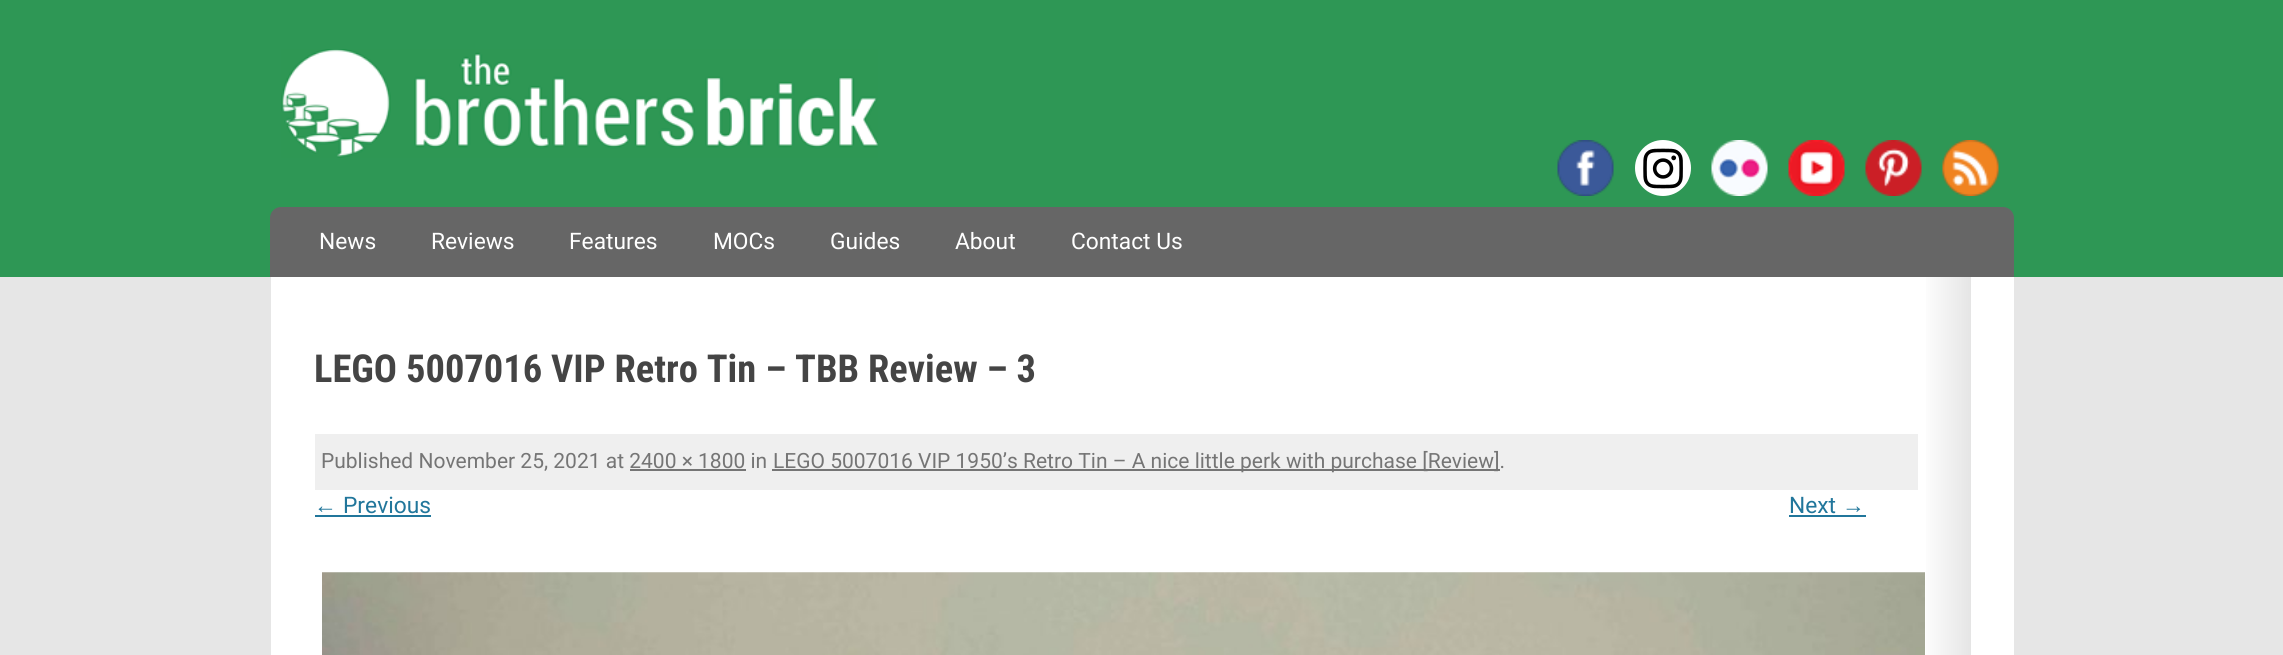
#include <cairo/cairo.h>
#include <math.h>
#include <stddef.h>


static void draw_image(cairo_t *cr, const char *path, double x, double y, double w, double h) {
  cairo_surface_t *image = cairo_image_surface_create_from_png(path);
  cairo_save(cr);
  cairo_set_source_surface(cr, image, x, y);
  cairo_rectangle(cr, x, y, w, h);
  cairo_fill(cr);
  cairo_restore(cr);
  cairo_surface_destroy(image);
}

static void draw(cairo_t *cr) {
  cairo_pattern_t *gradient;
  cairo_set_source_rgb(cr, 230 / 255.0, 230 / 255.0, 230 / 255.0);
  cairo_paint(cr);
  cairo_set_source_rgb(cr, 46 / 255.0, 151 / 255.0, 85 / 255.0);
  cairo_rectangle(cr, 0, 0, 2283, 277);
  cairo_fill(cr);
  draw_image(cr, "images/1.png", 281, 49, 597, 109);
  draw_image(cr, "images/2.png", 1557, 140, 57, 56);
  cairo_set_source_rgb(cr, 1, 1, 1);
  cairo_arc(cr, 1663, 168, 28, 0, 2 * M_PI);
  cairo_fill(cr);
  draw_image(cr, "images/3.png", 1643, 148, 40, 41);
  draw_image(cr, "images/4.png", 1711, 140, 57, 56);
  draw_image(cr, "images/5.png", 1788, 140, 57, 56);
  draw_image(cr, "images/6.png", 1865, 140, 57, 56);
  draw_image(cr, "images/7.png", 1942, 140, 57, 56);
  cairo_set_source_rgb(cr, 102 / 255.0, 102 / 255.0, 102 / 255.0);
  cairo_new_path(cr);
  cairo_move_to(cr, 281, 207);
  cairo_line_to(cr, 2003, 207);
  cairo_curve_to(cr, 2009, 207, 2014, 212, 2014, 218);
  cairo_line_to(cr, 2014, 277);
  cairo_line_to(cr, 270, 277);
  cairo_line_to(cr, 270, 218);
  cairo_curve_to(cr, 270, 212, 275, 207, 281, 207);
  cairo_close_path(cr);
  cairo_fill(cr);
  cairo_set_source_rgb(cr, 1, 1, 1);
  cairo_rectangle(cr, 271, 277, 1743, 378);
  cairo_fill(cr);
  gradient = cairo_pattern_create_linear(315, 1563, 1971, 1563);
  cairo_pattern_add_color_stop_rgba(gradient, 0.97, 1, 1, 1, 1);
  cairo_pattern_add_color_stop_rgba(gradient, 1, 229 / 255.0, 229 / 255.0, 229 / 255.0, 1);
  cairo_set_source(cr, gradient);
  cairo_pattern_destroy(gradient);
  cairo_rectangle(cr, 1926, 277, 45, 378);
  cairo_fill(cr);
  cairo_set_source_rgb(cr, 239 / 255.0, 239 / 255.0, 239 / 255.0);
  cairo_rectangle(cr, 315, 434, 1603, 56);
  cairo_fill(cr);
  cairo_set_source_rgb(cr, 117 / 255.0, 117 / 255.0, 117 / 255.0);
  cairo_rectangle(cr, 772, 469, 728, 2);
  cairo_fill(cr);
  cairo_rectangle(cr, 630, 469, 116, 2);
  cairo_fill(cr);
  cairo_set_source_rgb(cr, 33 / 255.0, 118 / 255.0, 155 / 255.0);
  cairo_rectangle(cr, 315, 515, 116, 2);
  cairo_fill(cr);
  cairo_rectangle(cr, 1789, 515, 77, 2);
  cairo_fill(cr);
  draw_image(cr, "images/8.png", 322, 572, 1603, 83);
  cairo_select_font_face(cr, "Roboto", CAIRO_FONT_SLANT_NORMAL, CAIRO_FONT_WEIGHT_NORMAL);
  cairo_set_font_size(cr, 22.75);
  cairo_set_source_rgb(cr, 1, 1, 1);
  cairo_move_to(cr, 319, 249);
  cairo_show_text(cr, "News");
  cairo_move_to(cr, 431, 249);
  cairo_show_text(cr, "Reviews");
  cairo_move_to(cr, 569, 249);
  cairo_show_text(cr, "Features");
  cairo_move_to(cr, 713, 249);
  cairo_show_text(cr, "MOCs");
  cairo_move_to(cr, 830, 249);
  cairo_show_text(cr, "Guides");
  cairo_move_to(cr, 955, 249);
  cairo_show_text(cr, "About");
  cairo_move_to(cr, 1071, 249);
  cairo_show_text(cr, "Contact Us");
  cairo_select_font_face(cr, "Roboto Condensed", CAIRO_FONT_SLANT_NORMAL, CAIRO_FONT_WEIGHT_BOLD);
  cairo_set_font_size(cr, 38.5);
  cairo_set_source_rgb(cr, 68 / 255.0, 68 / 255.0, 68 / 255.0);
  cairo_move_to(cr, 314, 382);
  cairo_show_text(cr, "LEGO 5007016 VIP Retro Tin – TBB Review – 3");
  cairo_select_font_face(cr, "Roboto", CAIRO_FONT_SLANT_NORMAL, CAIRO_FONT_WEIGHT_NORMAL);
  cairo_set_font_size(cr, 21);
  cairo_set_source_rgb(cr, 117 / 255.0, 117 / 255.0, 117 / 255.0);
  cairo_move_to(cr, 321, 468);
  cairo_show_text(cr, "Published November 25, 2021 at 2400 × 1800 in");
  cairo_move_to(cr, 773, 468);
  cairo_show_text(cr, "LEGO 5007016 VIP 1950’s Retro Tin – A nice little perk with purchase [Review].");
  cairo_select_font_face(cr, "Liberation Sans", CAIRO_FONT_SLANT_NORMAL, CAIRO_FONT_WEIGHT_NORMAL);
  cairo_set_font_size(cr, 22.75);
  cairo_set_source_rgb(cr, 33 / 255.0, 118 / 255.0, 155 / 255.0);
  cairo_move_to(cr, 314, 513);
  cairo_show_text(cr, "←");
  cairo_select_font_face(cr, "Roboto", CAIRO_FONT_SLANT_NORMAL, CAIRO_FONT_WEIGHT_NORMAL);
  cairo_move_to(cr, 343, 513);
  cairo_show_text(cr, "Previous");
  cairo_move_to(cr, 1789, 513);
  cairo_show_text(cr, "Next");
  cairo_select_font_face(cr, "Liberation Sans", CAIRO_FONT_SLANT_NORMAL, CAIRO_FONT_WEIGHT_NORMAL);
  cairo_move_to(cr, 1842, 513);
  cairo_show_text(cr, "→");
}

int main(void) {
  cairo_surface_t *surface = cairo_image_surface_create(CAIRO_FORMAT_RGB24, 2283, 655);
  cairo_t *cr = cairo_create(surface);
  cairo_font_options_t *options = cairo_font_options_create();
  cairo_font_options_set_hint_metrics(options, CAIRO_HINT_METRICS_OFF);
  cairo_font_options_set_hint_style(options, CAIRO_HINT_STYLE_NONE);
  cairo_set_font_options(cr, options);
  cairo_set_miter_limit(cr, 4);
  draw(cr);
  cairo_surface_write_to_png(surface, "out.png");
  cairo_font_options_destroy(options);
  cairo_destroy(cr);
  cairo_surface_destroy(surface);
  return 0;
}
